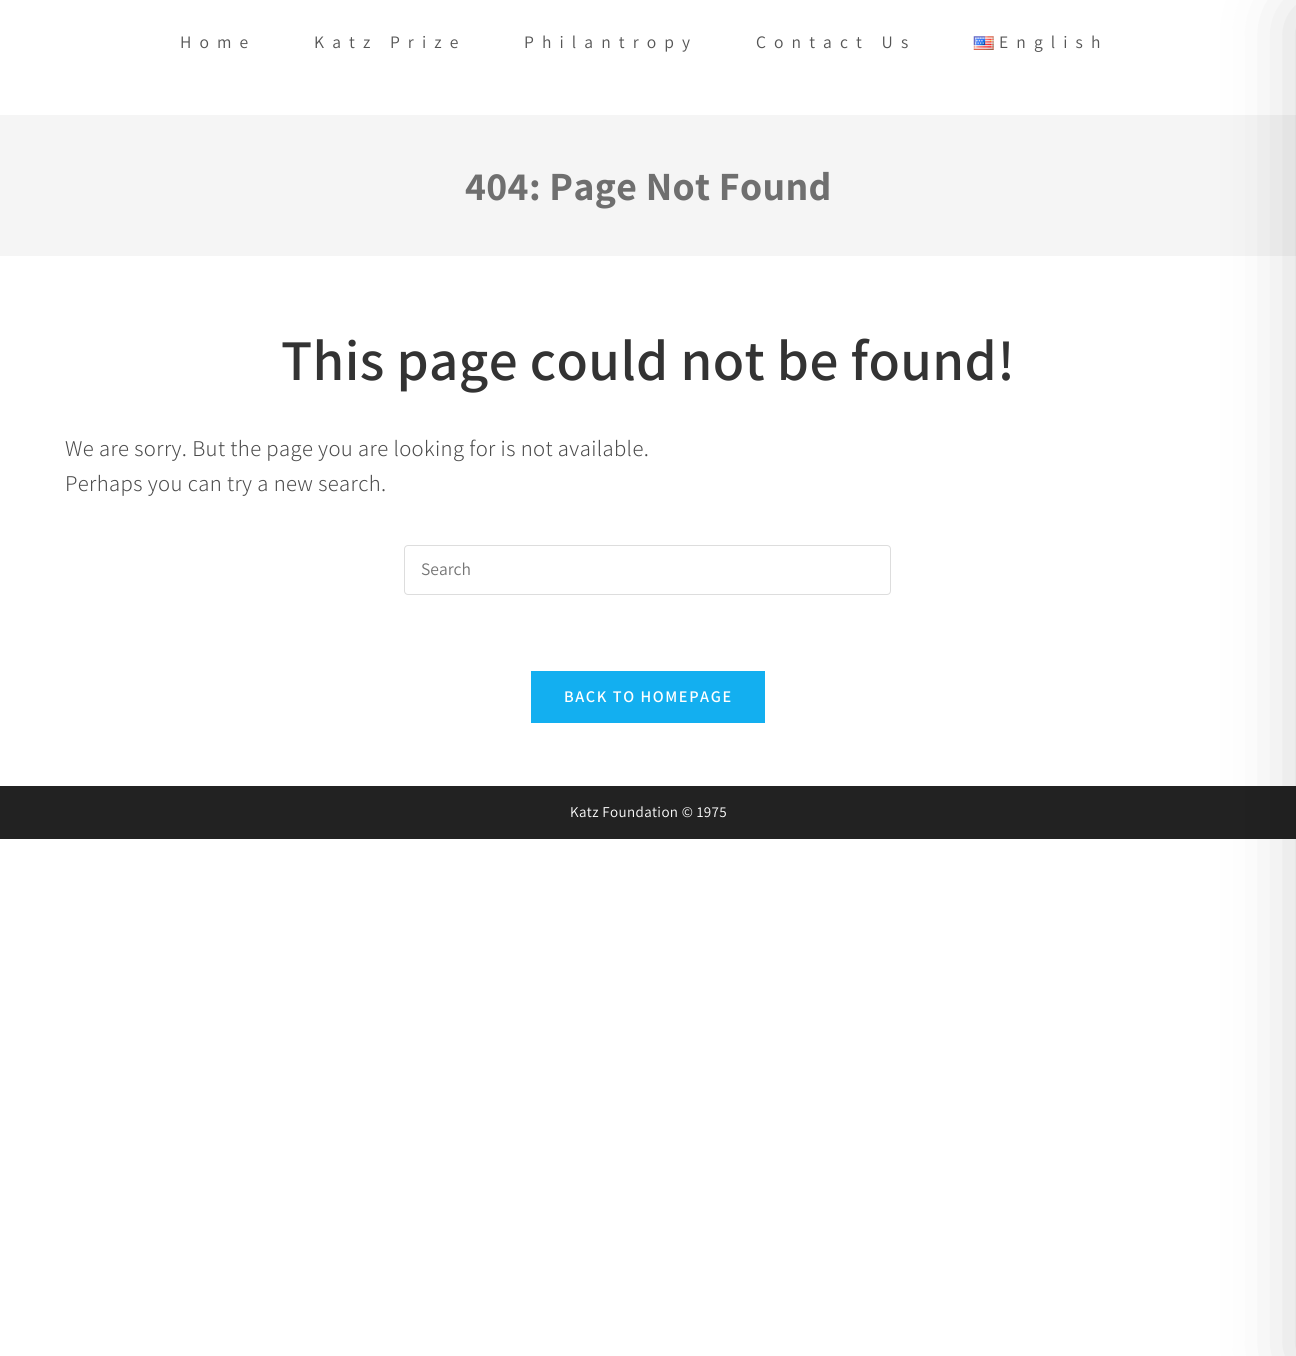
#include <cairo/cairo.h>
#include <math.h>
#include <stddef.h>


static void draw_spaced(cairo_t *cr, double x, double y, const char *s, double letter, double word) {
  cairo_move_to(cr, x, y);
  while (*s) {
    char ch[5] = {0};
    int n = 0;
    do ch[n++] = *s++; while ((*s & 0xC0) == 0x80);
    cairo_show_text(cr, ch);
    cairo_rel_move_to(cr, letter + word * (*ch == ' '), 0);
  }
}

static void rounded_rect(cairo_t *cr, double x, double y, double w, double h, double r) {
  cairo_new_sub_path(cr);
  cairo_arc(cr, x + w - r, y + h - r, r, 0, M_PI / 2);
  cairo_arc(cr, x + r, y + h - r, r, M_PI / 2, M_PI);
  cairo_arc(cr, x + r, y + r, r, M_PI, 1.5 * M_PI);
  cairo_arc(cr, x + w - r, y + r, r, 1.5 * M_PI, 2 * M_PI);
  cairo_close_path(cr);
}

static void draw_shadow(cairo_t *cr, double x, double y, double w, double h, double r, double blur, double alpha) {
  cairo_push_group_with_content(cr, CAIRO_CONTENT_ALPHA);
  cairo_set_operator(cr, CAIRO_OPERATOR_SOURCE);
  for (int i = 15; i >= -15 && fmin(w, h) + blur * i / 3 > 0; i -= 2) {
    double e = blur * i / 6;
    cairo_set_source_rgba(cr, 0, 0, 0, alpha * erfc((i - 1) / 8.5) / 2);
    rounded_rect(cr, x - e, y - e, w + 2 * e, h + 2 * e, fmax(0, fmin(r + e + blur * .6, fmin(w, h) / 2 + e)));
    cairo_fill(cr);
  }
  cairo_pattern_t *soft = cairo_pop_group(cr);
  cairo_mask(cr, soft);
  cairo_pattern_destroy(soft);
}

static void draw_image(cairo_t *cr, const char *path, double x, double y, double w, double h) {
  cairo_surface_t *image = cairo_image_surface_create_from_png(path);
  cairo_save(cr);
  cairo_set_source_surface(cr, image, x, y);
  cairo_rectangle(cr, x, y, w, h);
  cairo_fill(cr);
  cairo_restore(cr);
  cairo_surface_destroy(image);
}

static void draw(cairo_t *cr) {
  cairo_set_source_rgb(cr, 1, 1, 1);
  cairo_paint(cr);
  draw_image(cr, "images/1.png", 973, 36, 21, 14);
  cairo_set_source_rgb(cr, 245 / 255.0, 245 / 255.0, 245 / 255.0);
  cairo_rectangle(cr, 0, 115, 1296, 141);
  cairo_fill(cr);
  rounded_rect(cr, 404.5, 545.5, 486, 49, 3.5);
  cairo_set_source_rgb(cr, 221 / 255.0, 221 / 255.0, 221 / 255.0);
  cairo_set_line_width(cr, 1);
  cairo_stroke(cr);
  cairo_set_source_rgb(cr, 19 / 255.0, 175 / 255.0, 240 / 255.0);
  cairo_rectangle(cr, 531, 671, 234, 52);
  cairo_fill(cr);
  cairo_set_source_rgb(cr, 34 / 255.0, 34 / 255.0, 34 / 255.0);
  cairo_rectangle(cr, 0, 786, 1296, 53);
  cairo_fill(cr);
  cairo_set_source_rgb(cr, 0, 0, 0);
  draw_shadow(cr, 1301, 13, 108, 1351, 0, 37.5, 0.2);
  cairo_select_font_face(cr, "Assistant", CAIRO_FONT_SLANT_NORMAL, CAIRO_FONT_WEIGHT_NORMAL);
  cairo_set_font_size(cr, 17.5);
  cairo_set_source_rgb(cr, 85 / 255.0, 85 / 255.0, 85 / 255.0);
  draw_spaced(cr, 180, 48, "Home", 8.1, 0);
  draw_spaced(cr, 314, 48, "Katz Prize", 8.1, 0);
  draw_spaced(cr, 524, 48, "Philantropy", 8.1, 0);
  draw_spaced(cr, 756, 48, "Contact Us", 8.1, 0);
  draw_spaced(cr, 999, 48, "English", 8.1, 0);
  cairo_select_font_face(cr, "Assistant", CAIRO_FONT_SLANT_NORMAL, CAIRO_FONT_WEIGHT_BOLD);
  cairo_set_font_size(cr, 40);
  cairo_set_source_rgb(cr, 111 / 255.0, 111 / 255.0, 111 / 255.0);
  draw_spaced(cr, 465, 200, "404: Page Not Found", 0.38, 0);
  cairo_select_font_face(cr, "Assistant SemiBold", CAIRO_FONT_SLANT_NORMAL, CAIRO_FONT_WEIGHT_NORMAL);
  cairo_set_font_size(cr, 57.5);
  cairo_set_source_rgb(cr, 51 / 255.0, 51 / 255.0, 51 / 255.0);
  draw_spaced(cr, 281, 380, "This page could not be found!", 0.38, 0);
  cairo_select_font_face(cr, "Assistant Light", CAIRO_FONT_SLANT_NORMAL, CAIRO_FONT_WEIGHT_NORMAL);
  cairo_set_font_size(cr, 22.5);
  cairo_set_source_rgb(cr, 74 / 255.0, 74 / 255.0, 74 / 255.0);
  draw_spaced(cr, 65, 456, "We are sorry. But the page you are looking for is not available.", 0.38, 0);
  draw_spaced(cr, 65, 491, "Perhaps you can try a new search.", 0.38, 0);
  cairo_select_font_face(cr, "Assistant", CAIRO_FONT_SLANT_NORMAL, CAIRO_FONT_WEIGHT_NORMAL);
  cairo_set_font_size(cr, 17.5);
  cairo_set_source_rgb(cr, 117 / 255.0, 117 / 255.0, 117 / 255.0);
  cairo_move_to(cr, 421, 575);
  cairo_show_text(cr, "Search");
  cairo_select_font_face(cr, "Assistant SemiBold", CAIRO_FONT_SLANT_NORMAL, CAIRO_FONT_WEIGHT_NORMAL);
  cairo_set_font_size(cr, 16.25);
  cairo_set_source_rgb(cr, 1, 1, 1);
  draw_spaced(cr, 564, 702, "BACK TO HOMEPAGE", 1.6, 0);
  cairo_select_font_face(cr, "Assistant", CAIRO_FONT_SLANT_NORMAL, CAIRO_FONT_WEIGHT_NORMAL);
  cairo_set_font_size(cr, 15);
  draw_spaced(cr, 570, 817, "Katz Foundation © 1975", 0.38, 0);
}

int main(void) {
  cairo_surface_t *surface = cairo_image_surface_create(CAIRO_FORMAT_RGB24, 1296, 1356);
  cairo_t *cr = cairo_create(surface);
  cairo_font_options_t *options = cairo_font_options_create();
  cairo_font_options_set_hint_metrics(options, CAIRO_HINT_METRICS_OFF);
  cairo_font_options_set_hint_style(options, CAIRO_HINT_STYLE_NONE);
  cairo_set_font_options(cr, options);
  cairo_set_miter_limit(cr, 4);
  draw(cr);
  cairo_surface_write_to_png(surface, "out.png");
  cairo_font_options_destroy(options);
  cairo_destroy(cr);
  cairo_surface_destroy(surface);
  return 0;
}
